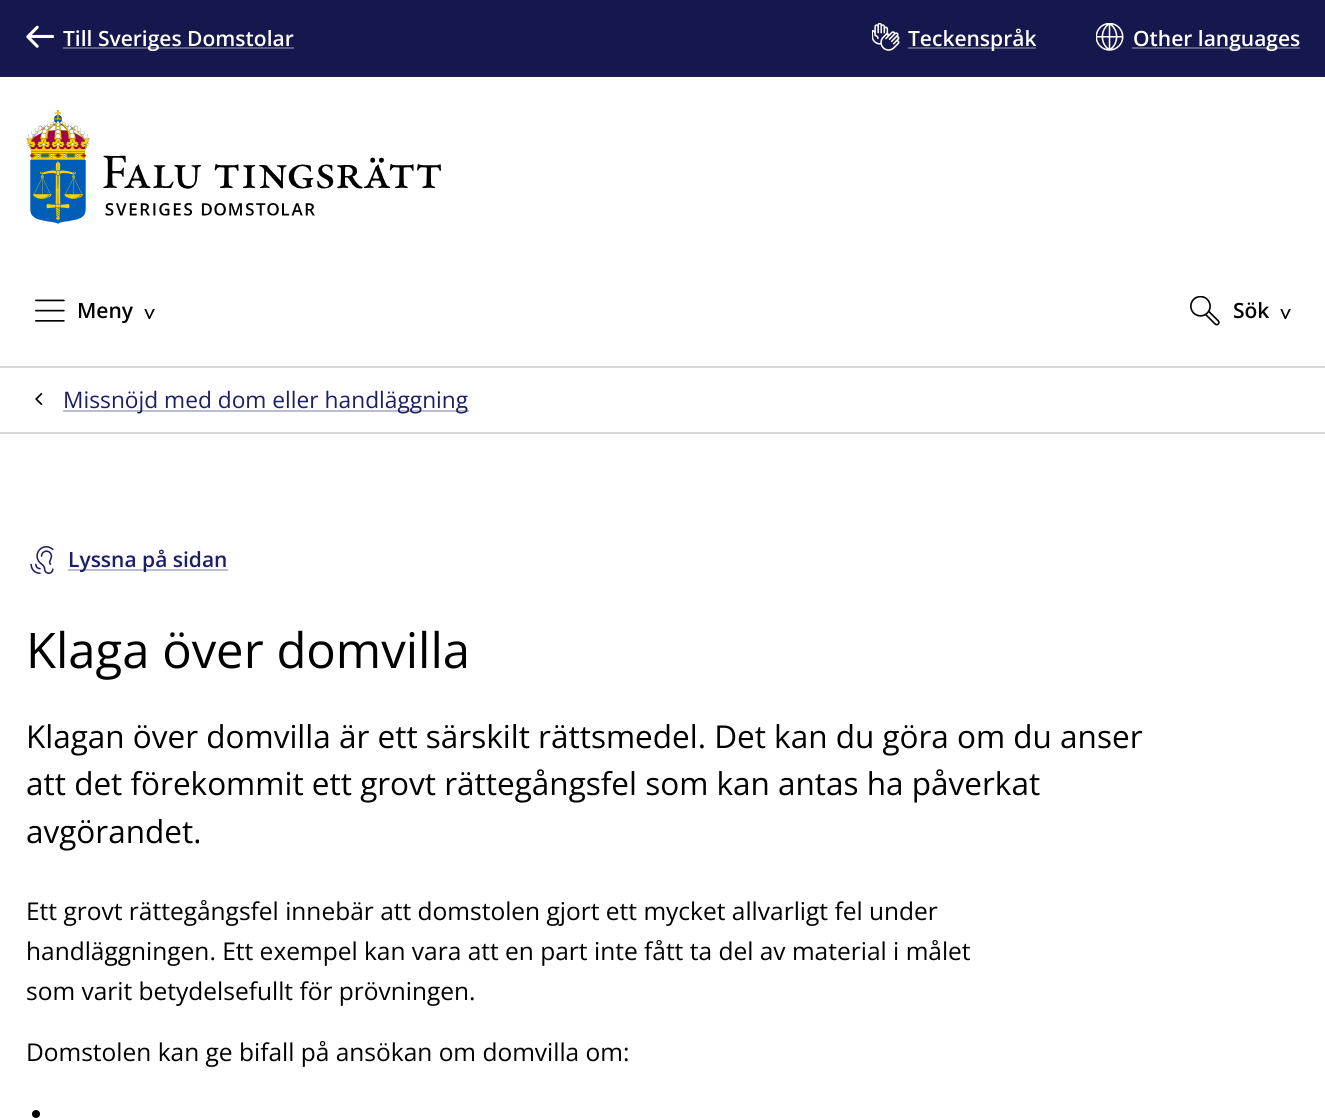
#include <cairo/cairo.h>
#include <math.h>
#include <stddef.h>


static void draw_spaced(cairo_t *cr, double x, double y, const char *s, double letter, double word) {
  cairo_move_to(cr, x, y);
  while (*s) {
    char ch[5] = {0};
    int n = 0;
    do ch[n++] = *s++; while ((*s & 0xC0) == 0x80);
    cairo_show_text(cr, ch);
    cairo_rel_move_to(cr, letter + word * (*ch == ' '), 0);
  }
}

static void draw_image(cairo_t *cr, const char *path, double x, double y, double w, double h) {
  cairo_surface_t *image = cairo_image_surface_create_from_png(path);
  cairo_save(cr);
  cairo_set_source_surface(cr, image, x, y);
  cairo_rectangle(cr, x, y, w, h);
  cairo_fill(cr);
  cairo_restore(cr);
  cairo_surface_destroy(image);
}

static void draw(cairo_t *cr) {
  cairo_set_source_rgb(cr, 1, 1, 1);
  cairo_paint(cr);
  cairo_set_source_rgb(cr, 214 / 255.0, 215 / 255.0, 217 / 255.0);
  cairo_rectangle(cr, 0, 366, 1325, 2);
  cairo_fill(cr);
  cairo_set_source_rgb(cr, 21 / 255.0, 23 / 255.0, 77 / 255.0);
  cairo_rectangle(cr, 0, 0, 1325, 77);
  cairo_fill(cr);
  draw_image(cr, "images/1.png", 26, 25, 28, 23);
  cairo_set_source_rgb(cr, 91 / 255.0, 93 / 255.0, 130 / 255.0);
  cairo_rectangle(cr, 63, 47, 231, 2);
  cairo_fill(cr);
  draw_image(cr, "images/2.png", 872, 23, 28, 28);
  cairo_rectangle(cr, 908, 47, 128, 2);
  cairo_fill(cr);
  draw_image(cr, "images/3.png", 1096, 23, 28, 28);
  cairo_rectangle(cr, 1132, 47, 168, 2);
  cairo_fill(cr);
  draw_image(cr, "images/4.png", 26, 110, 415, 114);
  draw_image(cr, "images/5.png", 35, 299, 30, 23);
  draw_image(cr, "images/6.png", 1190, 296, 30, 30);
  cairo_set_source_rgb(cr, 214 / 255.0, 215 / 255.0, 217 / 255.0);
  cairo_rectangle(cr, 0, 432, 1325, 2);
  cairo_fill(cr);
  draw_image(cr, "images/7.png", 35, 392, 8, 14);
  cairo_set_source_rgb(cr, 187 / 255.0, 188 / 255.0, 209 / 255.0);
  cairo_rectangle(cr, 63, 410, 406, 2);
  cairo_fill(cr);
  draw_image(cr, "images/8.png", 30, 546, 24, 28);
  cairo_rectangle(cr, 68, 569, 160, 2);
  cairo_fill(cr);
  cairo_set_source_rgb(cr, 0, 0, 0);
  cairo_arc(cr, 36, 1114, 4, 0, 2 * M_PI);
  cairo_fill(cr);
  cairo_select_font_face(cr, "Open Sans SemiBold", CAIRO_FONT_SLANT_NORMAL, CAIRO_FONT_WEIGHT_NORMAL);
  cairo_set_font_size(cr, 21);
  cairo_set_source_rgb(cr, 1, 1, 1);
  cairo_move_to(cr, 63, 46);
  cairo_show_text(cr, "Till Sveriges Domstolar");
  cairo_move_to(cr, 908, 46);
  cairo_show_text(cr, "Teckenspråk");
  cairo_move_to(cr, 1133, 46);
  cairo_show_text(cr, "Other languages");
  cairo_set_source_rgb(cr, 0, 0, 0);
  cairo_move_to(cr, 77, 318);
  cairo_show_text(cr, "Meny");
  cairo_save(cr);
  cairo_translate(cr, 142, 308);
  cairo_rotate(cr, 90 * M_PI / 180);
  draw_spaced(cr, 0, 0, ">", -4, 0);
  cairo_restore(cr);
  cairo_move_to(cr, 1233, 318);
  cairo_show_text(cr, "Sök");
  cairo_save(cr);
  cairo_translate(cr, 1278, 308);
  cairo_rotate(cr, 90 * M_PI / 180);
  draw_spaced(cr, 0, 0, ">", -4, 0);
  cairo_restore(cr);
  cairo_select_font_face(cr, "Open Sans", CAIRO_FONT_SLANT_NORMAL, CAIRO_FONT_WEIGHT_NORMAL);
  cairo_set_font_size(cr, 22.75);
  cairo_set_source_rgb(cr, 28 / 255.0, 31 / 255.0, 102 / 255.0);
  cairo_move_to(cr, 63, 408);
  cairo_show_text(cr, "Missnöjd med dom eller handläggning");
  cairo_select_font_face(cr, "Open Sans SemiBold", CAIRO_FONT_SLANT_NORMAL, CAIRO_FONT_WEIGHT_NORMAL);
  cairo_set_font_size(cr, 21);
  cairo_move_to(cr, 68, 567);
  cairo_show_text(cr, "Lyssna på sidan");
  cairo_select_font_face(cr, "Open Sans", CAIRO_FONT_SLANT_NORMAL, CAIRO_FONT_WEIGHT_NORMAL);
  cairo_set_font_size(cr, 49);
  cairo_set_source_rgb(cr, 0, 0, 0);
  cairo_move_to(cr, 26, 668);
  cairo_show_text(cr, "Klaga över domvilla");
  cairo_set_font_size(cr, 31.5);
  cairo_move_to(cr, 26, 748);
  cairo_show_text(cr, "Klagan över domvilla är ett särskilt rättsmedel. Det kan du göra om du anser");
  cairo_move_to(cr, 26, 795);
  cairo_show_text(cr, "att det förekommit ett grovt rättegångsfel som kan antas ha påverkat");
  cairo_move_to(cr, 26, 843);
  cairo_show_text(cr, "avgörandet.");
  cairo_set_font_size(cr, 24.5);
  cairo_move_to(cr, 26, 920);
  cairo_show_text(cr, "Ett grovt rättegångsfel innebär att domstolen gjort ett mycket allvarligt fel under");
  cairo_move_to(cr, 26, 960);
  cairo_show_text(cr, "handläggningen. Ett exempel kan vara att en part inte fått ta del av material i målet");
  cairo_move_to(cr, 26, 1000);
  cairo_show_text(cr, "som varit betydelsefullt för prövningen.");
  cairo_move_to(cr, 26, 1061);
  cairo_show_text(cr, "Domstolen kan ge bifall på ansökan om domvilla om:");
}

int main(void) {
  cairo_surface_t *surface = cairo_image_surface_create(CAIRO_FORMAT_RGB24, 1325, 1118);
  cairo_t *cr = cairo_create(surface);
  cairo_font_options_t *options = cairo_font_options_create();
  cairo_font_options_set_hint_metrics(options, CAIRO_HINT_METRICS_OFF);
  cairo_font_options_set_hint_style(options, CAIRO_HINT_STYLE_NONE);
  cairo_set_font_options(cr, options);
  cairo_set_miter_limit(cr, 4);
  draw(cr);
  cairo_surface_write_to_png(surface, "out.png");
  cairo_font_options_destroy(options);
  cairo_destroy(cr);
  cairo_surface_destroy(surface);
  return 0;
}
